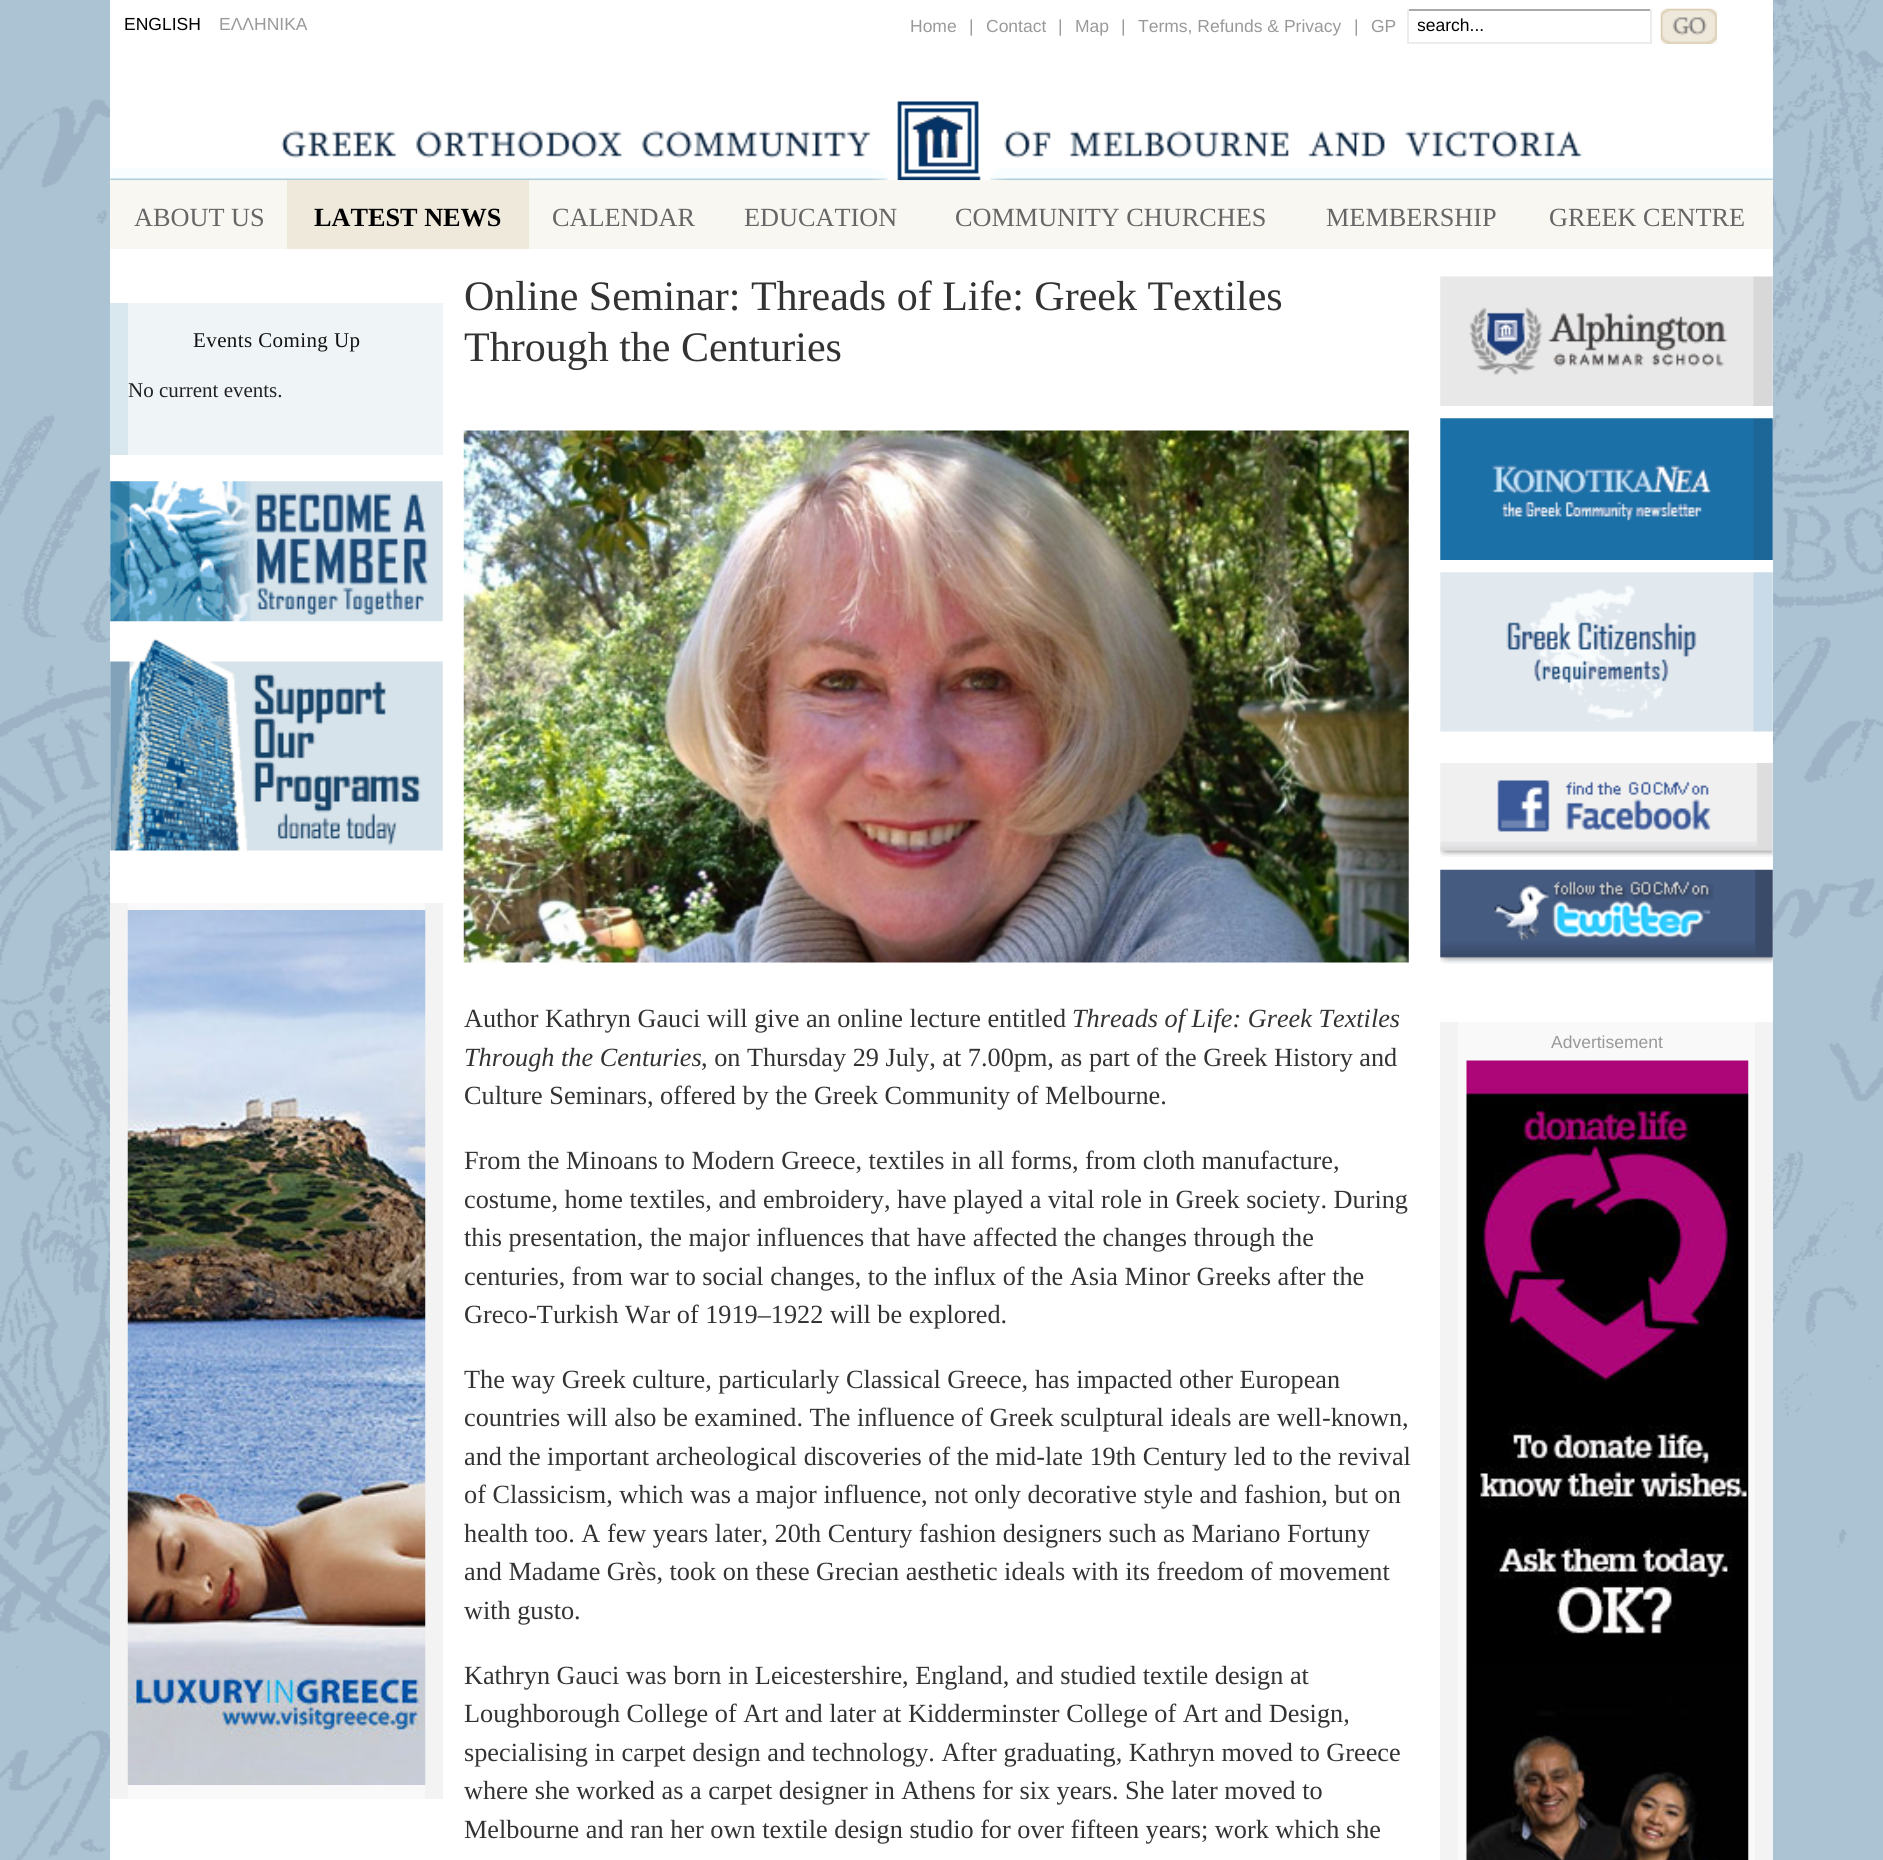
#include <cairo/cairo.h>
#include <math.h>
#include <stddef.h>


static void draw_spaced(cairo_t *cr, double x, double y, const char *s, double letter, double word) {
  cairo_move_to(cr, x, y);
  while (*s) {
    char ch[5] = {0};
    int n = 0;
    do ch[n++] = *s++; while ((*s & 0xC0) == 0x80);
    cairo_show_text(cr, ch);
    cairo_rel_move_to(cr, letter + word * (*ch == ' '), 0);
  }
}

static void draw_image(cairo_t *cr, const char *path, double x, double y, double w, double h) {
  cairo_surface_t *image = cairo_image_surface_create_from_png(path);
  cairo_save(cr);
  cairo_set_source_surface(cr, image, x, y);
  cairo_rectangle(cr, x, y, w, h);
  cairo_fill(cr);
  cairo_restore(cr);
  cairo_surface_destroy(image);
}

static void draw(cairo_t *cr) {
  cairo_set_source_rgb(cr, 1, 1, 1);
  cairo_paint(cr);
  draw_image(cr, "images/1.png", 0, 0, 1883, 1860);
  cairo_set_source_rgb(cr, 1, 1, 1);
  cairo_rectangle(cr, 110, 0, 1663, 1860);
  cairo_fill(cr);
  cairo_set_source_rgb(cr, 170 / 255.0, 170 / 255.0, 170 / 255.0);
  cairo_rectangle(cr, 1407, 9, 245, 2);
  cairo_fill(cr);
  cairo_set_source_rgb(cr, 236 / 255.0, 236 / 255.0, 236 / 255.0);
  cairo_rectangle(cr, 1650, 9, 2, 35);
  cairo_fill(cr);
  cairo_rectangle(cr, 1407, 42, 245, 2);
  cairo_fill(cr);
  cairo_rectangle(cr, 1407, 9, 2, 35);
  cairo_fill(cr);
  cairo_set_source_rgb(cr, 239 / 255.0, 233 / 255.0, 220 / 255.0);
  cairo_rectangle(cr, 1661, 9, 56, 35);
  cairo_fill(cr);
  draw_image(cr, "images/2.png", 1660, 8, 57, 36);
  draw_image(cr, "images/3.png", 110, 101, 1663, 80);
  cairo_set_source_rgba(cr, 248 / 255.0, 246 / 255.0, 240 / 255.0, 0.85);
  cairo_rectangle(cr, 110, 180, 1663, 69);
  cairo_fill(cr);
  cairo_set_source_rgb(cr, 239 / 255.0, 233 / 255.0, 220 / 255.0);
  cairo_rectangle(cr, 287, 180, 242, 69);
  cairo_fill(cr);
  cairo_set_source_rgb(cr, 239 / 255.0, 244 / 255.0, 247 / 255.0);
  cairo_rectangle(cr, 128, 303, 315, 152);
  cairo_fill(cr);
  cairo_set_source_rgb(cr, 217 / 255.0, 231 / 255.0, 239 / 255.0);
  cairo_rectangle(cr, 110, 303, 18, 152);
  cairo_fill(cr);
  draw_image(cr, "images/4.png", 110, 481, 333, 141);
  draw_image(cr, "images/5.png", 110, 638, 333, 213);
  cairo_set_source_rgb(cr, 249 / 255.0, 249 / 255.0, 249 / 255.0);
  cairo_rectangle(cr, 128, 903, 297, 896);
  cairo_fill(cr);
  cairo_set_source_rgb(cr, 243 / 255.0, 243 / 255.0, 243 / 255.0);
  cairo_rectangle(cr, 425, 903, 18, 896);
  cairo_fill(cr);
  cairo_rectangle(cr, 110, 903, 18, 896);
  cairo_fill(cr);
  draw_image(cr, "images/6.png", 127, 910, 299, 875);
  draw_image(cr, "images/7.png", 463, 430, 946, 533);
  draw_image(cr, "images/8.png", 1440, 276, 333, 130);
  draw_image(cr, "images/9.png", 1440, 418, 333, 142);
  draw_image(cr, "images/10.png", 1440, 572, 333, 160);
  draw_image(cr, "images/11.png", 1440, 763, 333, 94);
  draw_image(cr, "images/12.png", 1440, 869, 333, 95);
  cairo_set_source_rgb(cr, 249 / 255.0, 249 / 255.0, 249 / 255.0);
  cairo_rectangle(cr, 1458, 1022, 297, 838);
  cairo_fill(cr);
  cairo_set_source_rgb(cr, 243 / 255.0, 243 / 255.0, 243 / 255.0);
  cairo_rectangle(cr, 1755, 1022, 18, 838);
  cairo_fill(cr);
  cairo_rectangle(cr, 1440, 1022, 18, 838);
  cairo_fill(cr);
  draw_image(cr, "images/13.png", 1466, 1060, 283, 800);
  cairo_select_font_face(cr, "Liberation Sans", CAIRO_FONT_SLANT_NORMAL, CAIRO_FONT_WEIGHT_NORMAL);
  cairo_set_font_size(cr, 17.5);
  cairo_set_source_rgb(cr, 0, 0, 0);
  cairo_move_to(cr, 124, 30);
  cairo_show_text(cr, "ENGLISH");
  cairo_set_source_rgb(cr, 153 / 255.0, 153 / 255.0, 153 / 255.0);
  cairo_move_to(cr, 219, 30);
  cairo_show_text(cr, "ΕΛΛΗΝΙΚΑ");
  cairo_move_to(cr, 910, 32);
  cairo_show_text(cr, "Home");
  cairo_move_to(cr, 969, 32);
  cairo_show_text(cr, "|");
  cairo_move_to(cr, 986, 32);
  cairo_show_text(cr, "Contact");
  cairo_move_to(cr, 1058, 32);
  cairo_show_text(cr, "|");
  cairo_move_to(cr, 1075, 32);
  cairo_show_text(cr, "Map");
  cairo_move_to(cr, 1121, 32);
  cairo_show_text(cr, "|");
  cairo_move_to(cr, 1138, 32);
  cairo_show_text(cr, "Terms, Refunds & Privacy");
  cairo_move_to(cr, 1354, 32);
  cairo_show_text(cr, "|");
  cairo_move_to(cr, 1371, 32);
  cairo_show_text(cr, "GP");
  cairo_save(cr);
  cairo_rectangle(cr, 1418, 16, 232, 19);
  cairo_clip(cr);
  cairo_set_source_rgb(cr, 0, 0, 0);
  cairo_move_to(cr, 1417, 31);
  cairo_show_text(cr, "search...");
  cairo_restore(cr);
  cairo_select_font_face(cr, "Liberation Serif", CAIRO_FONT_SLANT_NORMAL, CAIRO_FONT_WEIGHT_NORMAL);
  cairo_set_font_size(cr, 26.25);
  cairo_set_source_rgb(cr, 102 / 255.0, 102 / 255.0, 102 / 255.0);
  cairo_move_to(cr, 134, 226);
  cairo_show_text(cr, "ABOUT US");
  cairo_select_font_face(cr, "Liberation Serif", CAIRO_FONT_SLANT_NORMAL, CAIRO_FONT_WEIGHT_BOLD);
  cairo_set_source_rgb(cr, 0, 0, 0);
  cairo_move_to(cr, 314, 226);
  cairo_show_text(cr, "LATEST NEWS");
  cairo_select_font_face(cr, "Liberation Serif", CAIRO_FONT_SLANT_NORMAL, CAIRO_FONT_WEIGHT_NORMAL);
  cairo_set_source_rgb(cr, 102 / 255.0, 102 / 255.0, 102 / 255.0);
  cairo_move_to(cr, 552, 226);
  cairo_show_text(cr, "CALENDAR");
  cairo_move_to(cr, 744, 226);
  cairo_show_text(cr, "EDUCATION");
  cairo_move_to(cr, 955, 226);
  cairo_show_text(cr, "COMMUNITY CHURCHES");
  cairo_move_to(cr, 1326, 226);
  cairo_show_text(cr, "MEMBERSHIP");
  cairo_move_to(cr, 1549, 226);
  cairo_show_text(cr, "GREEK CENTRE");
  cairo_set_font_size(cr, 21);
  cairo_set_source_rgb(cr, 17 / 255.0, 17 / 255.0, 17 / 255.0);
  draw_spaced(cr, 193, 347, "Events Coming Up", 0.4, 0);
  cairo_set_source_rgb(cr, 34 / 255.0, 34 / 255.0, 34 / 255.0);
  cairo_move_to(cr, 128, 397);
  cairo_show_text(cr, "No current events.");
  cairo_set_font_size(cr, 42);
  cairo_set_source_rgb(cr, 51 / 255.0, 51 / 255.0, 51 / 255.0);
  cairo_move_to(cr, 464, 310);
  cairo_show_text(cr, "Online Seminar: Threads of Life: Greek Textiles");
  cairo_move_to(cr, 464, 361);
  cairo_show_text(cr, "Through the Centuries");
  cairo_set_font_size(cr, 26.25);
  cairo_move_to(cr, 464, 1027);
  cairo_show_text(cr, "Author Kathryn Gauci will give an online lecture entitled");
  cairo_select_font_face(cr, "Liberation Serif", CAIRO_FONT_SLANT_ITALIC, CAIRO_FONT_WEIGHT_NORMAL);
  cairo_move_to(cr, 1072, 1027);
  cairo_show_text(cr, "Threads of Life: Greek Textiles");
  cairo_move_to(cr, 464, 1066);
  cairo_show_text(cr, "Through the Centuries");
  cairo_select_font_face(cr, "Liberation Serif", CAIRO_FONT_SLANT_NORMAL, CAIRO_FONT_WEIGHT_NORMAL);
  cairo_move_to(cr, 701, 1066);
  cairo_show_text(cr, ", on Thursday 29 July, at 7.00pm, as part of the Greek History and");
  cairo_move_to(cr, 464, 1104);
  cairo_show_text(cr, "Culture Seminars, offered by the Greek Community of Melbourne.");
  cairo_move_to(cr, 464, 1169);
  cairo_show_text(cr, "From the Minoans to Modern Greece, textiles in all forms, from cloth manufacture,");
  cairo_move_to(cr, 464, 1208);
  cairo_show_text(cr, "costume, home textiles, and embroidery, have played a vital role in Greek society. During");
  cairo_move_to(cr, 464, 1246);
  cairo_show_text(cr, "this presentation, the major influences that have affected the changes through the");
  cairo_move_to(cr, 464, 1285);
  cairo_show_text(cr, "centuries, from war to social changes, to the influx of the Asia Minor Greeks after the");
  cairo_move_to(cr, 464, 1323);
  cairo_show_text(cr, "Greco-Turkish War of 1919–1922 will be explored.");
  cairo_move_to(cr, 464, 1388);
  cairo_show_text(cr, "The way Greek culture, particularly Classical Greece, has impacted other European");
  cairo_move_to(cr, 464, 1426);
  cairo_show_text(cr, "countries will also be examined. The influence of Greek sculptural ideals are well-known,");
  cairo_move_to(cr, 464, 1465);
  cairo_show_text(cr, "and the important archeological discoveries of the mid-late 19th Century led to the revival");
  cairo_move_to(cr, 464, 1503);
  cairo_show_text(cr, "of Classicism, which was a major influence, not only decorative style and fashion, but on");
  cairo_move_to(cr, 464, 1542);
  cairo_show_text(cr, "health too. A few years later, 20th Century fashion designers such as Mariano Fortuny");
  cairo_move_to(cr, 464, 1580);
  cairo_show_text(cr, "and Madame Grès, took on these Grecian aesthetic ideals with its freedom of movement");
  cairo_move_to(cr, 464, 1619);
  cairo_show_text(cr, "with gusto.");
  cairo_move_to(cr, 464, 1684);
  cairo_show_text(cr, "Kathryn Gauci was born in Leicestershire, England, and studied textile design at");
  cairo_move_to(cr, 464, 1722);
  cairo_show_text(cr, "Loughborough College of Art and later at Kidderminster College of Art and Design,");
  cairo_move_to(cr, 464, 1761);
  cairo_show_text(cr, "specialising in carpet design and technology. After graduating, Kathryn moved to Greece");
  cairo_move_to(cr, 464, 1799);
  cairo_show_text(cr, "where she worked as a carpet designer in Athens for six years. She later moved to");
  cairo_move_to(cr, 464, 1838);
  cairo_show_text(cr, "Melbourne and ran her own textile design studio for over fifteen years; work which she");
  cairo_select_font_face(cr, "Liberation Sans", CAIRO_FONT_SLANT_NORMAL, CAIRO_FONT_WEIGHT_NORMAL);
  cairo_set_font_size(cr, 17.5);
  cairo_set_source_rgb(cr, 153 / 255.0, 153 / 255.0, 153 / 255.0);
  cairo_move_to(cr, 1551, 1048);
  cairo_show_text(cr, "Advertisement");
}

int main(void) {
  cairo_surface_t *surface = cairo_image_surface_create(CAIRO_FORMAT_RGB24, 1883, 1860);
  cairo_t *cr = cairo_create(surface);
  cairo_font_options_t *options = cairo_font_options_create();
  cairo_font_options_set_hint_metrics(options, CAIRO_HINT_METRICS_OFF);
  cairo_font_options_set_hint_style(options, CAIRO_HINT_STYLE_NONE);
  cairo_set_font_options(cr, options);
  cairo_set_miter_limit(cr, 4);
  draw(cr);
  cairo_surface_write_to_png(surface, "out.png");
  cairo_font_options_destroy(options);
  cairo_destroy(cr);
  cairo_surface_destroy(surface);
  return 0;
}
